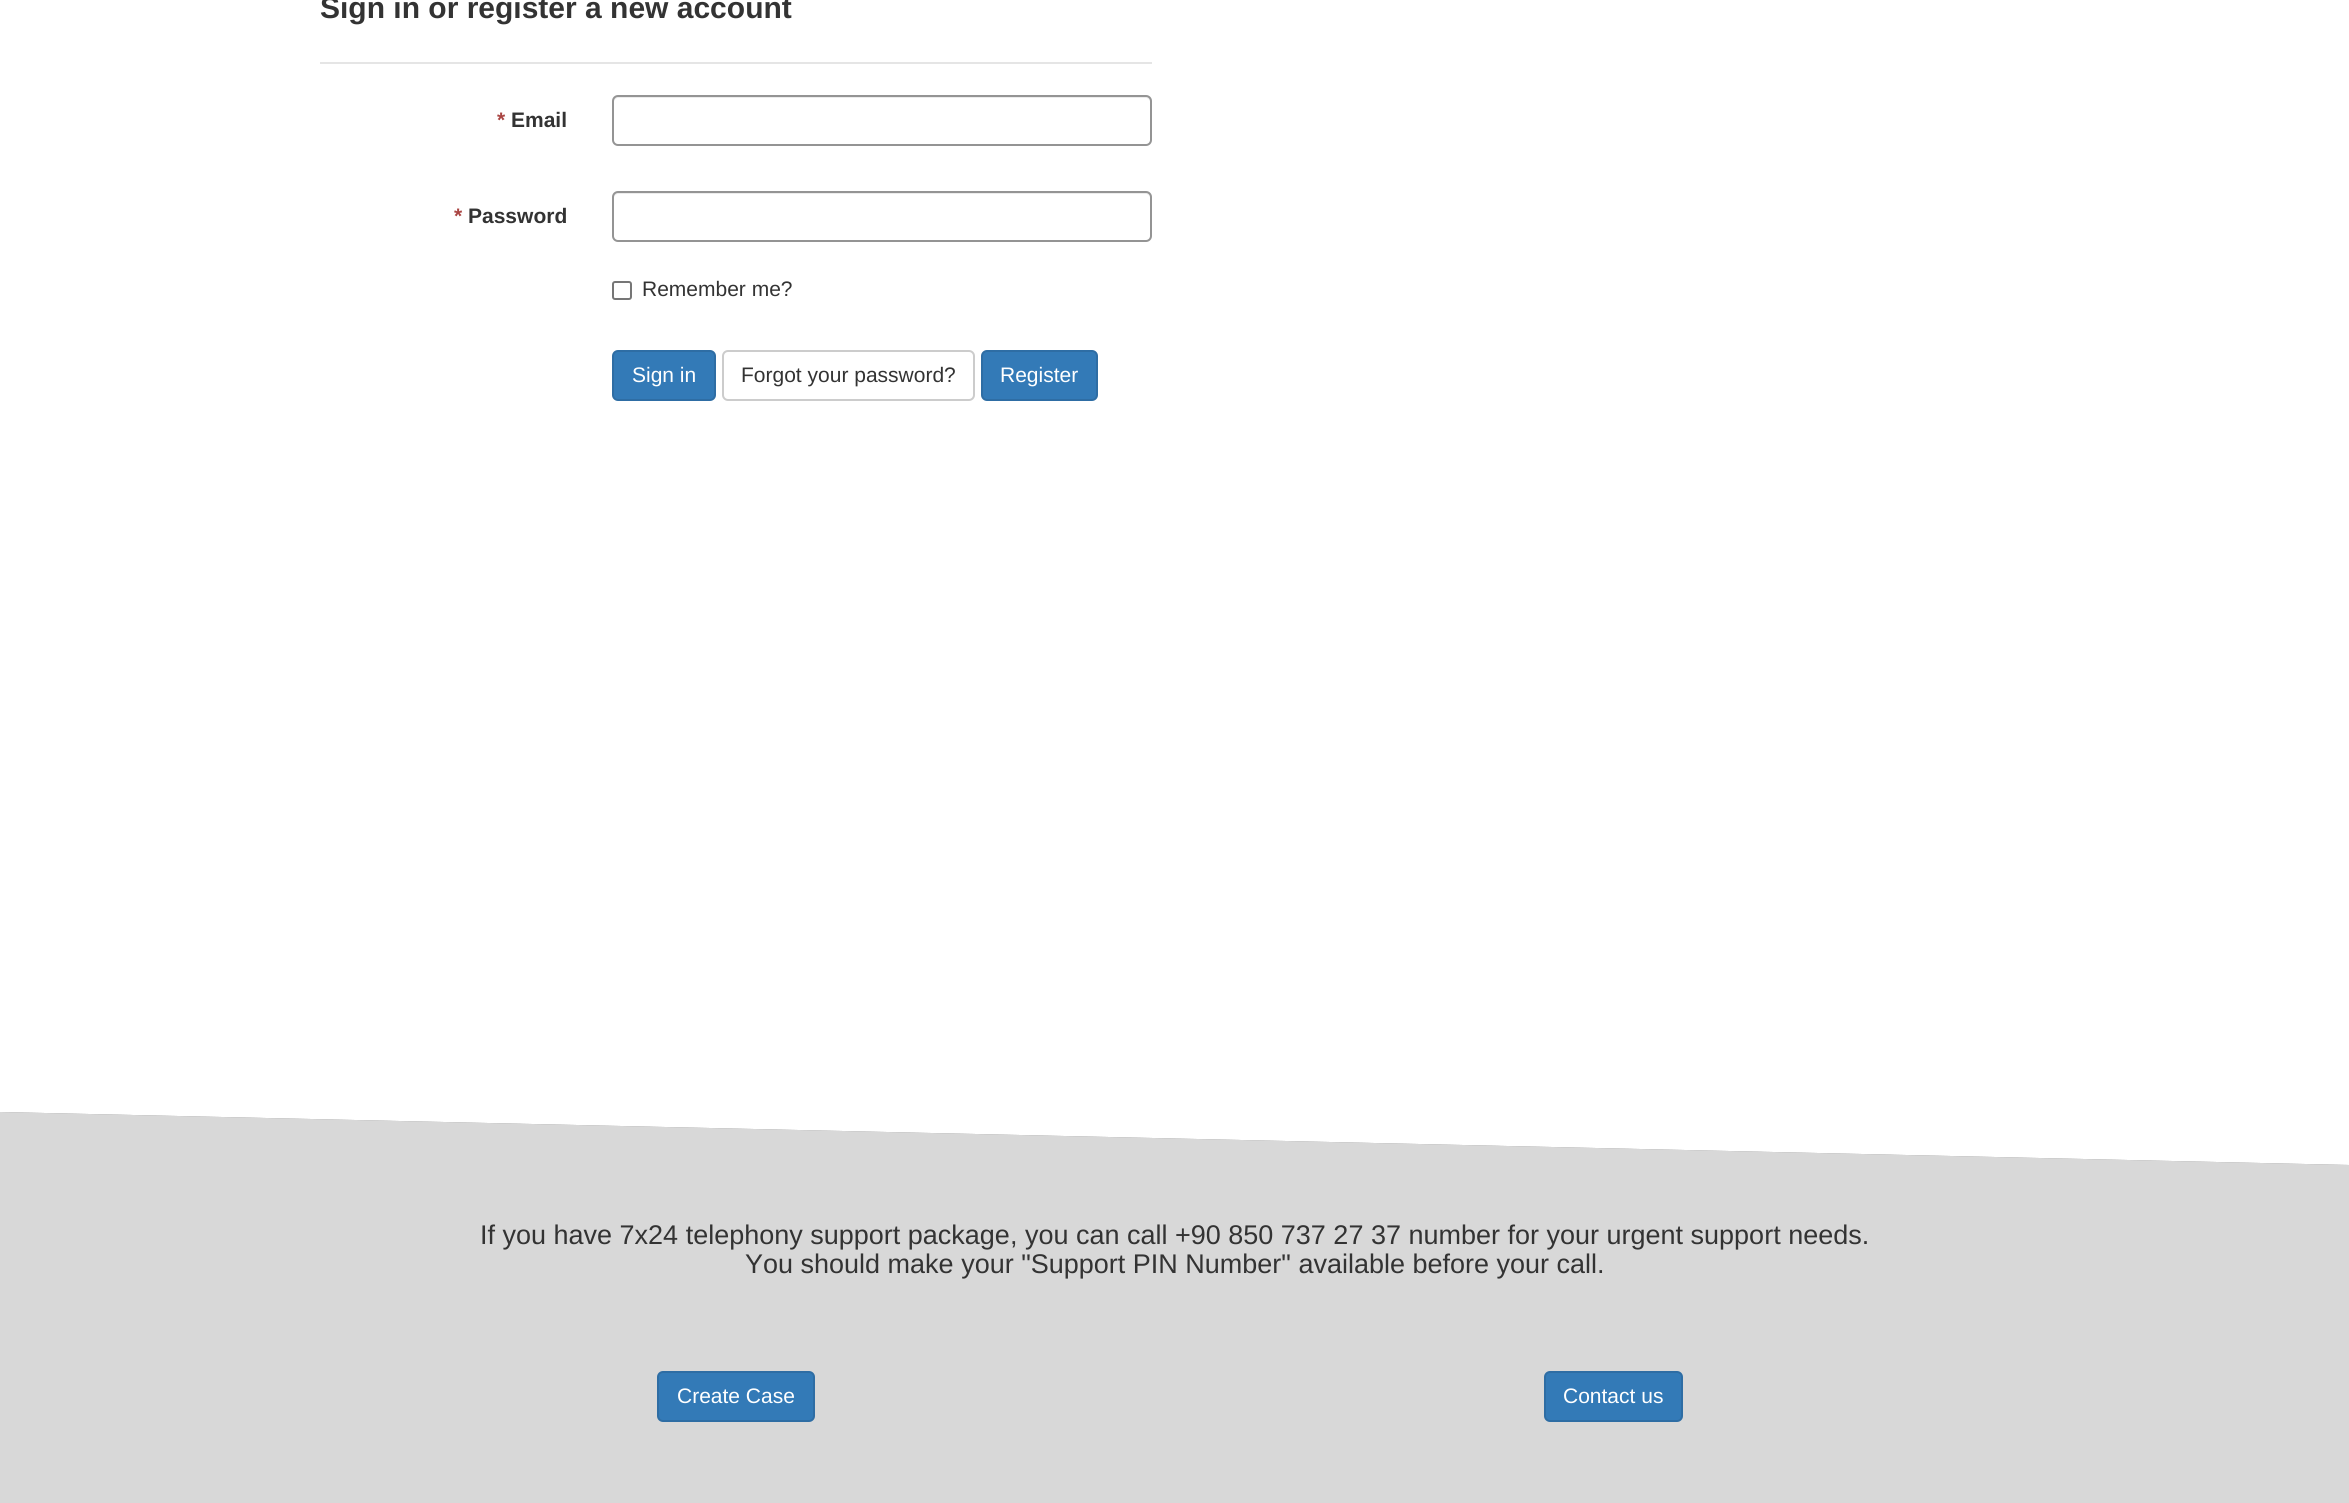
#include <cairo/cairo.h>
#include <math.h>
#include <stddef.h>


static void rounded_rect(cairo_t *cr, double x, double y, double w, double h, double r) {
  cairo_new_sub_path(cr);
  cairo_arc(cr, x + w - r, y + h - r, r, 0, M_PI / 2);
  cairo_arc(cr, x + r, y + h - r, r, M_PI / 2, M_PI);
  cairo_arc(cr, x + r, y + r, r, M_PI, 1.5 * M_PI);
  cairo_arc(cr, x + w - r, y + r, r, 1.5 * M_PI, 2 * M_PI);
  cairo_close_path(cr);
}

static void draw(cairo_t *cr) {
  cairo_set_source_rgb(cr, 1, 1, 1);
  cairo_paint(cr);
  cairo_set_source_rgb(cr, 229 / 255.0, 229 / 255.0, 229 / 255.0);
  cairo_rectangle(cr, 320, 62, 832, 2);
  cairo_fill(cr);
  cairo_set_source_rgb(cr, 236 / 255.0, 236 / 255.0, 236 / 255.0);
  cairo_new_path(cr);
  cairo_move_to(cr, 618, 98);
  cairo_line_to(cr, 1146, 98);
  cairo_curve_to(cr, 1148, 98, 1150, 100, 1150, 102);
  cairo_line_to(cr, 1150, 142);
  cairo_curve_to(cr, 1151, 141, 1151, 140, 1151, 139);
  cairo_line_to(cr, 1151, 101);
  cairo_curve_to(cr, 1151, 98, 1149, 96, 1146, 96);
  cairo_line_to(cr, 619, 96);
  cairo_curve_to(cr, 616, 96, 614, 98, 614, 101);
  cairo_line_to(cr, 614, 102);
  cairo_curve_to(cr, 614, 100, 616, 98, 618, 98);
  cairo_close_path(cr);
  cairo_fill(cr);
  rounded_rect(cr, 613, 96, 538, 49, 5);
  cairo_set_source_rgb(cr, 148 / 255.0, 148 / 255.0, 148 / 255.0);
  cairo_stroke(cr);
  cairo_set_source_rgb(cr, 236 / 255.0, 236 / 255.0, 236 / 255.0);
  cairo_new_path(cr);
  cairo_move_to(cr, 618, 194);
  cairo_line_to(cr, 1146, 194);
  cairo_curve_to(cr, 1148, 194, 1150, 196, 1150, 198);
  cairo_line_to(cr, 1150, 238);
  cairo_curve_to(cr, 1151, 237, 1151, 236, 1151, 235);
  cairo_line_to(cr, 1151, 197);
  cairo_curve_to(cr, 1151, 194, 1149, 192, 1146, 192);
  cairo_line_to(cr, 619, 192);
  cairo_curve_to(cr, 616, 192, 614, 194, 614, 197);
  cairo_line_to(cr, 614, 198);
  cairo_curve_to(cr, 614, 196, 616, 194, 618, 194);
  cairo_close_path(cr);
  cairo_fill(cr);
  rounded_rect(cr, 613, 192, 538, 49, 5);
  cairo_set_source_rgb(cr, 148 / 255.0, 148 / 255.0, 148 / 255.0);
  cairo_stroke(cr);
  rounded_rect(cr, 613, 282, 18, 17, 2);
  cairo_set_source_rgb(cr, 118 / 255.0, 118 / 255.0, 118 / 255.0);
  cairo_stroke(cr);
  cairo_set_source_rgb(cr, 51 / 255.0, 122 / 255.0, 183 / 255.0);
  rounded_rect(cr, 613, 351, 102, 49, 5);
  cairo_fill_preserve(cr);
  cairo_set_source_rgb(cr, 46 / 255.0, 109 / 255.0, 164 / 255.0);
  cairo_stroke(cr);
  rounded_rect(cr, 723, 351, 251, 49, 5);
  cairo_set_source_rgb(cr, 204 / 255.0, 204 / 255.0, 204 / 255.0);
  cairo_stroke(cr);
  cairo_set_source_rgb(cr, 51 / 255.0, 122 / 255.0, 183 / 255.0);
  rounded_rect(cr, 982, 351, 115, 49, 5);
  cairo_fill_preserve(cr);
  cairo_set_source_rgb(cr, 46 / 255.0, 109 / 255.0, 164 / 255.0);
  cairo_stroke(cr);
  cairo_set_source_rgb(cr, 128 / 255.0, 128 / 255.0, 128 / 255.0);
  cairo_new_path(cr);
  cairo_move_to(cr, 0, 1112);
  cairo_line_to(cr, 0, 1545);
  cairo_line_to(cr, 1201, 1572);
  cairo_line_to(cr, 2349, 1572);
  cairo_line_to(cr, 2349, 1165);
  cairo_close_path(cr);
  cairo_fill(cr);
  cairo_set_source_rgba(cr, 237 / 255.0, 237 / 255.0, 237 / 255.0, 0.8);
  cairo_new_path(cr);
  cairo_move_to(cr, 0, 1112);
  cairo_line_to(cr, 0, 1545);
  cairo_line_to(cr, 1201, 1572);
  cairo_line_to(cr, 2349, 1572);
  cairo_line_to(cr, 2349, 1165);
  cairo_close_path(cr);
  cairo_fill(cr);
  cairo_set_source_rgb(cr, 51 / 255.0, 122 / 255.0, 183 / 255.0);
  rounded_rect(cr, 658, 1372, 156, 49, 5);
  cairo_fill_preserve(cr);
  cairo_set_source_rgb(cr, 46 / 255.0, 109 / 255.0, 164 / 255.0);
  cairo_stroke(cr);
  cairo_set_source_rgb(cr, 51 / 255.0, 122 / 255.0, 183 / 255.0);
  rounded_rect(cr, 1545, 1372, 137, 49, 5);
  cairo_fill_preserve(cr);
  cairo_set_source_rgb(cr, 46 / 255.0, 109 / 255.0, 164 / 255.0);
  cairo_stroke(cr);
  cairo_select_font_face(cr, "Liberation Sans", CAIRO_FONT_SLANT_NORMAL, CAIRO_FONT_WEIGHT_BOLD);
  cairo_set_font_size(cr, 30);
  cairo_set_source_rgb(cr, 51 / 255.0, 51 / 255.0, 51 / 255.0);
  cairo_move_to(cr, 320, 18);
  cairo_show_text(cr, "Sign in or register a new account");
  cairo_set_font_size(cr, 21);
  cairo_set_source_rgb(cr, 169 / 255.0, 68 / 255.0, 66 / 255.0);
  cairo_move_to(cr, 497, 127);
  cairo_show_text(cr, "*");
  cairo_set_source_rgb(cr, 51 / 255.0, 51 / 255.0, 51 / 255.0);
  cairo_move_to(cr, 511, 127);
  cairo_show_text(cr, "Email");
  cairo_set_source_rgb(cr, 169 / 255.0, 68 / 255.0, 66 / 255.0);
  cairo_move_to(cr, 454, 223);
  cairo_show_text(cr, "*");
  cairo_set_source_rgb(cr, 51 / 255.0, 51 / 255.0, 51 / 255.0);
  cairo_move_to(cr, 468, 223);
  cairo_show_text(cr, "Password");
  cairo_select_font_face(cr, "Liberation Sans", CAIRO_FONT_SLANT_NORMAL, CAIRO_FONT_WEIGHT_NORMAL);
  cairo_move_to(cr, 642, 296);
  cairo_show_text(cr, "Remember me?");
  cairo_set_source_rgb(cr, 1, 1, 1);
  cairo_move_to(cr, 632, 382);
  cairo_show_text(cr, "Sign in");
  cairo_set_source_rgb(cr, 51 / 255.0, 51 / 255.0, 51 / 255.0);
  cairo_move_to(cr, 741, 382);
  cairo_show_text(cr, "Forgot your password?");
  cairo_set_source_rgb(cr, 1, 1, 1);
  cairo_move_to(cr, 1000, 382);
  cairo_show_text(cr, "Register");
  cairo_set_font_size(cr, 27);
  cairo_set_source_rgb(cr, 51 / 255.0, 51 / 255.0, 51 / 255.0);
  cairo_move_to(cr, 480, 1244);
  cairo_show_text(cr, "If you have 7x24 telephony support package, you can call +90 850 737 27 37 number for your urgent support needs.");
  cairo_move_to(cr, 745, 1273);
  cairo_show_text(cr, "You should make your \"Support PIN Number\" available before your call.");
  cairo_set_font_size(cr, 21);
  cairo_set_source_rgb(cr, 1, 1, 1);
  cairo_move_to(cr, 677, 1403);
  cairo_show_text(cr, "Create Case");
  cairo_move_to(cr, 1563, 1403);
  cairo_show_text(cr, "Contact us");
}

int main(void) {
  cairo_surface_t *surface = cairo_image_surface_create(CAIRO_FORMAT_RGB24, 2349, 1503);
  cairo_t *cr = cairo_create(surface);
  cairo_font_options_t *options = cairo_font_options_create();
  cairo_font_options_set_hint_metrics(options, CAIRO_HINT_METRICS_OFF);
  cairo_font_options_set_hint_style(options, CAIRO_HINT_STYLE_NONE);
  cairo_set_font_options(cr, options);
  cairo_set_miter_limit(cr, 4);
  draw(cr);
  cairo_surface_write_to_png(surface, "out.png");
  cairo_font_options_destroy(options);
  cairo_destroy(cr);
  cairo_surface_destroy(surface);
  return 0;
}
